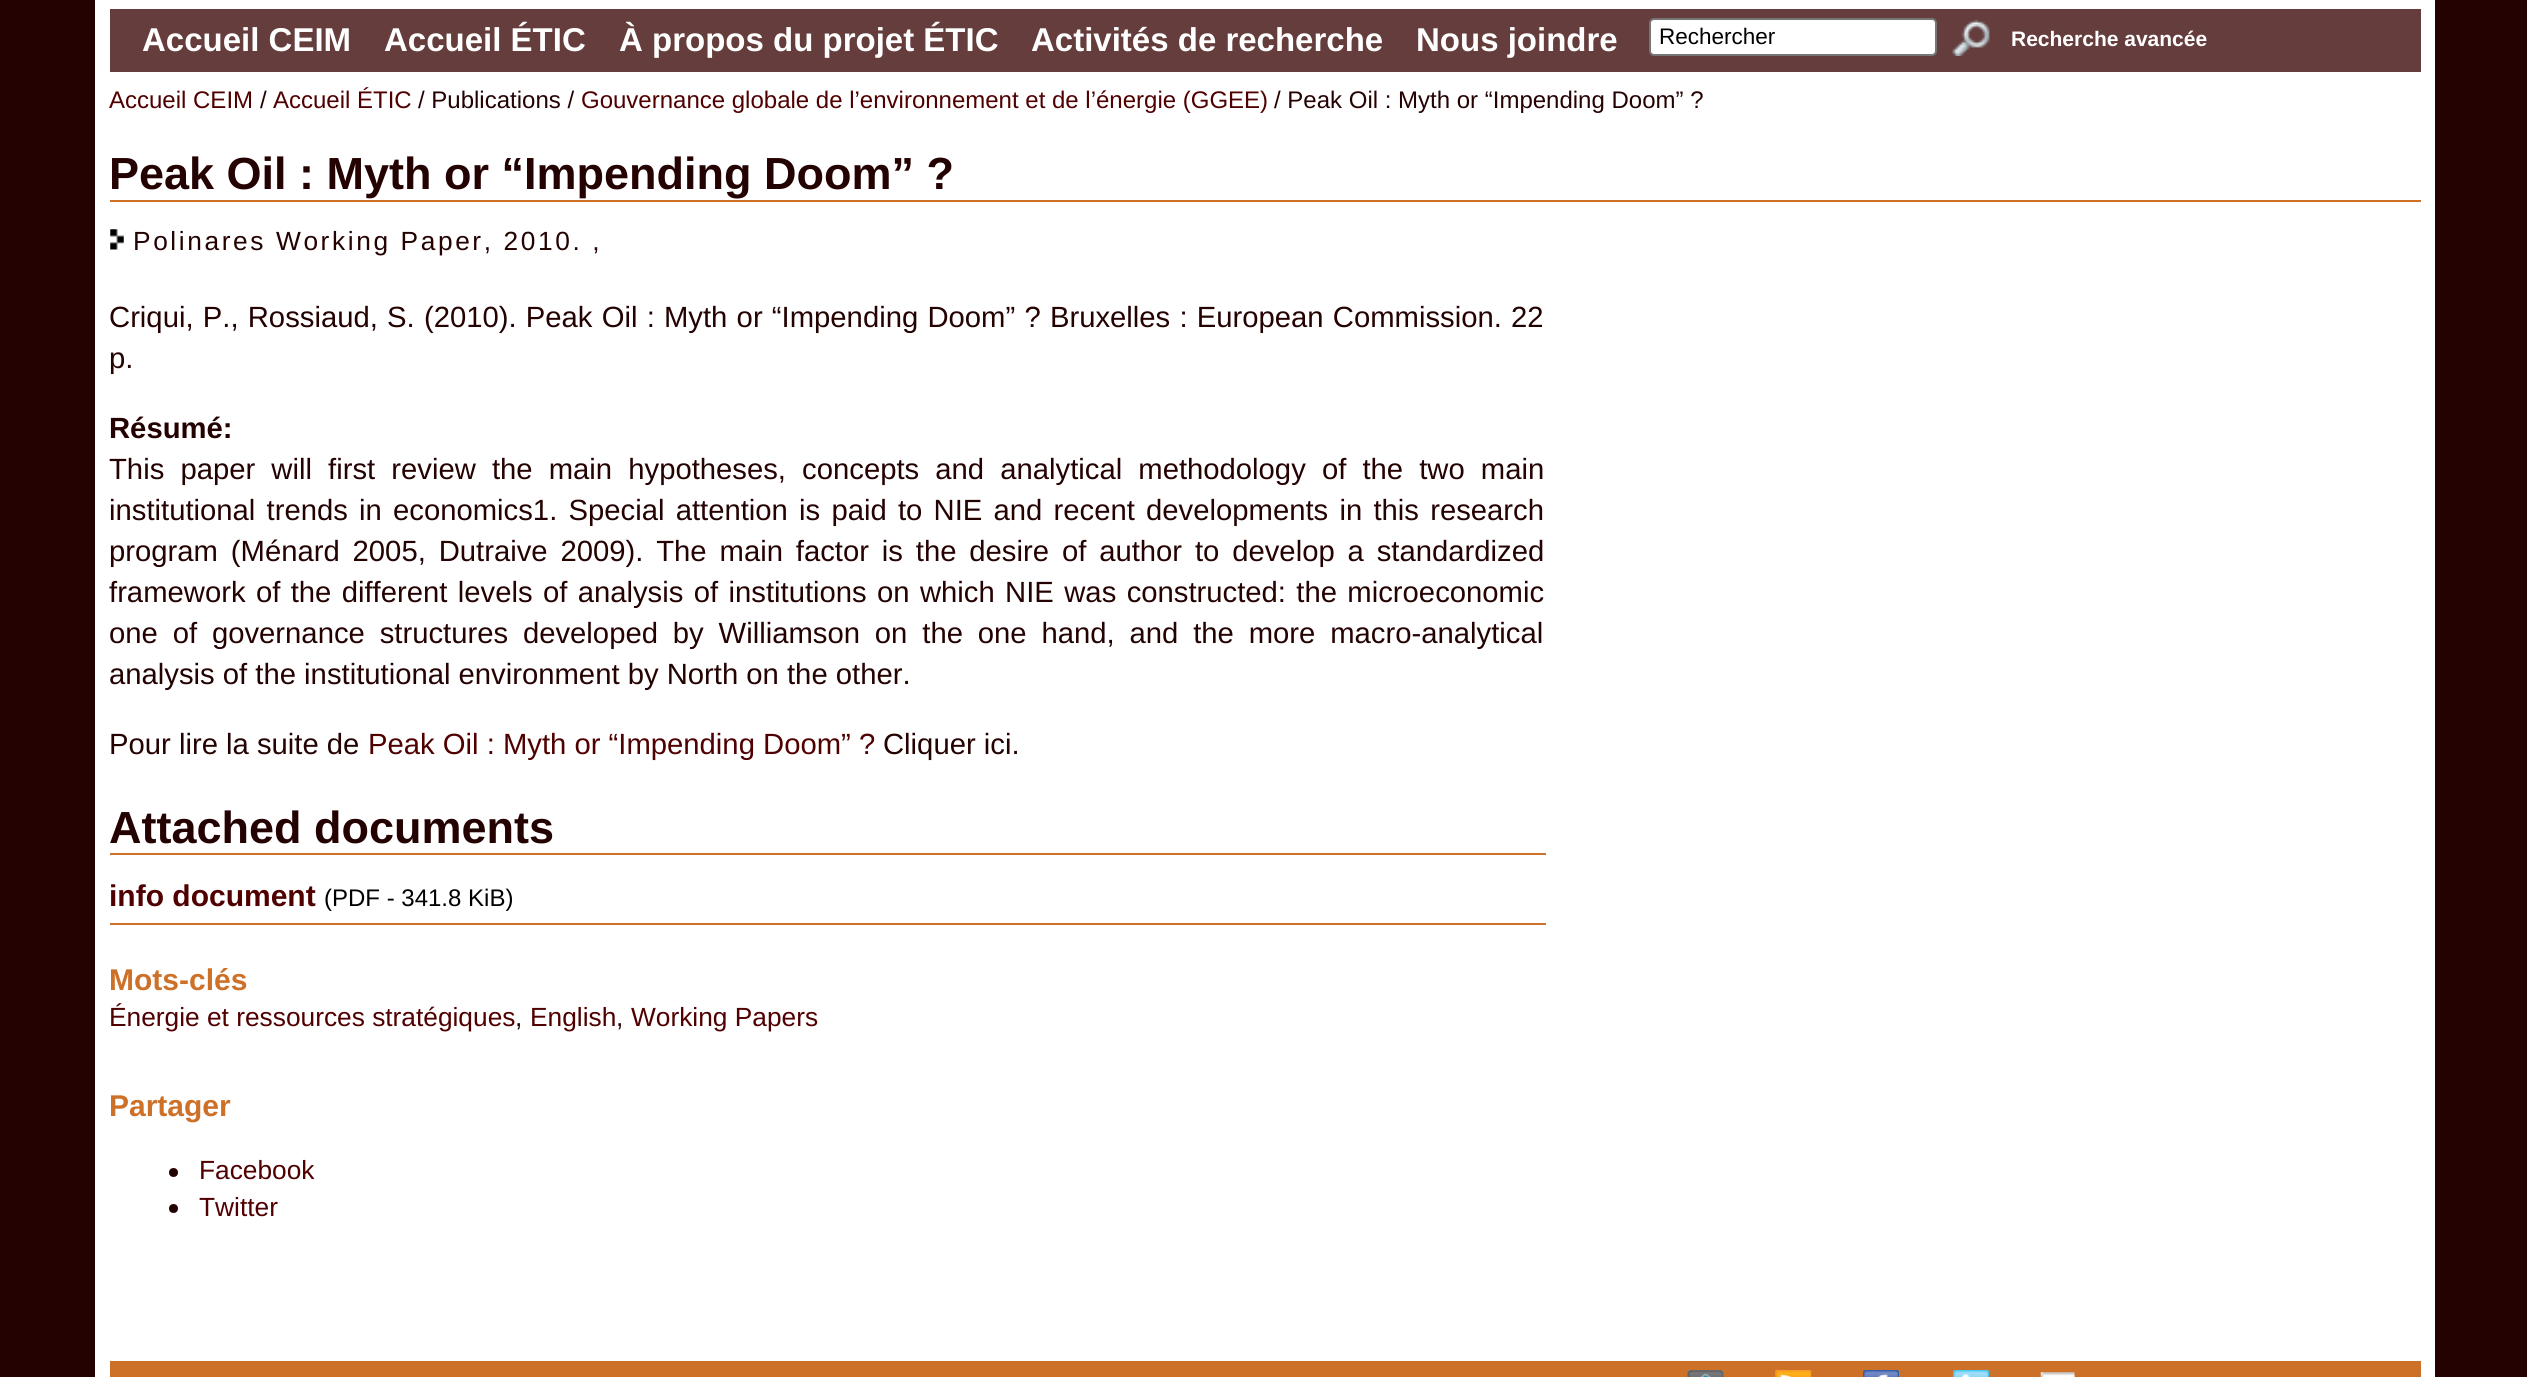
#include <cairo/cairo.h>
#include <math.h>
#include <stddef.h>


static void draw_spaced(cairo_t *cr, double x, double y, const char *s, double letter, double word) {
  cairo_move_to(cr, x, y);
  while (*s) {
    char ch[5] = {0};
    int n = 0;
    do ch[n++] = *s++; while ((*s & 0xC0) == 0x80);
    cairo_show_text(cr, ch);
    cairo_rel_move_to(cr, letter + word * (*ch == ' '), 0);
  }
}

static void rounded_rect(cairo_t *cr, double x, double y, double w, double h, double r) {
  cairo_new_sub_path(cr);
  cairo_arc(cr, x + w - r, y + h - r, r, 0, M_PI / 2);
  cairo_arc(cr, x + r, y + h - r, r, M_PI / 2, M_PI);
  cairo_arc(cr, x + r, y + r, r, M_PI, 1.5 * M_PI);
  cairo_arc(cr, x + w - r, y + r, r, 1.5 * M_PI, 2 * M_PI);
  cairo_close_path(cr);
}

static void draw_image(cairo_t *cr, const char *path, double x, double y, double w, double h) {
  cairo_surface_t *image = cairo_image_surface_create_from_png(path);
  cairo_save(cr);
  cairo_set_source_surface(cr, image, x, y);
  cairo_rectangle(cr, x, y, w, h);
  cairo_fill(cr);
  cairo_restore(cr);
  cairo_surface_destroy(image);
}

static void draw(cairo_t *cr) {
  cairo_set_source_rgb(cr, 37 / 255.0, 2 / 255.0, 2 / 255.0);
  cairo_paint(cr);
  cairo_set_source_rgb(cr, 1, 1, 1);
  cairo_rectangle(cr, 95, 0, 2340, 1377);
  cairo_fill(cr);
  cairo_set_source_rgb(cr, 100 / 255.0, 61 / 255.0, 60 / 255.0);
  cairo_rectangle(cr, 110, 9, 2311, 63);
  cairo_fill(cr);
  cairo_set_source_rgb(cr, 1, 1, 1);
  rounded_rect(cr, 1650, 19, 286, 36, 4);
  cairo_fill_preserve(cr);
  cairo_set_source_rgb(cr, 118 / 255.0, 118 / 255.0, 118 / 255.0);
  cairo_stroke(cr);
  draw_image(cr, "images/1.png", 1952, 19, 38, 37);
  cairo_set_source_rgb(cr, 205 / 255.0, 112 / 255.0, 40 / 255.0);
  cairo_rectangle(cr, 110, 200, 2311, 2);
  cairo_fill(cr);
  draw_image(cr, "images/2.png", 110, 229, 14, 21);
  cairo_rectangle(cr, 110, 923, 1436, 2);
  cairo_fill(cr);
  cairo_rectangle(cr, 110, 853, 1436, 2);
  cairo_fill(cr);
  cairo_set_source_rgb(cr, 37 / 255.0, 2 / 255.0, 2 / 255.0);
  cairo_arc(cr, 173.5, 1172.5, 4.5, 0, 2 * M_PI);
  cairo_fill(cr);
  cairo_arc(cr, 173.5, 1208.5, 4.5, 0, 2 * M_PI);
  cairo_fill(cr);
  cairo_set_source_rgb(cr, 205 / 255.0, 112 / 255.0, 40 / 255.0);
  cairo_rectangle(cr, 110, 1361, 2311, 16);
  cairo_fill(cr);
  draw_image(cr, "images/3.png", 1687, 1370, 37, 7);
  draw_image(cr, "images/4.png", 1775, 1370, 37, 7);
  draw_image(cr, "images/5.png", 1863, 1370, 36, 7);
  draw_image(cr, "images/6.png", 1953, 1370, 36, 7);
  draw_image(cr, "images/7.png", 2040, 1372, 35, 5);
  cairo_select_font_face(cr, "Liberation Sans", CAIRO_FONT_SLANT_NORMAL, CAIRO_FONT_WEIGHT_BOLD);
  cairo_set_font_size(cr, 33);
  cairo_set_source_rgb(cr, 1, 1, 1);
  cairo_move_to(cr, 142, 51);
  cairo_show_text(cr, "Accueil CEIM");
  cairo_move_to(cr, 384, 51);
  cairo_show_text(cr, "Accueil ÉTIC");
  cairo_move_to(cr, 619, 51);
  cairo_show_text(cr, "À propos du projet ÉTIC");
  cairo_move_to(cr, 1031, 51);
  cairo_show_text(cr, "Activités de recherche");
  cairo_move_to(cr, 1416, 51);
  cairo_show_text(cr, "Nous joindre");
  cairo_select_font_face(cr, "Liberation Sans", CAIRO_FONT_SLANT_NORMAL, CAIRO_FONT_WEIGHT_NORMAL);
  cairo_set_font_size(cr, 22.5);
  cairo_set_source_rgb(cr, 0, 0, 0);
  cairo_move_to(cr, 1659, 44);
  cairo_show_text(cr, "Rechercher");
  cairo_select_font_face(cr, "Liberation Sans", CAIRO_FONT_SLANT_NORMAL, CAIRO_FONT_WEIGHT_BOLD);
  cairo_set_font_size(cr, 21);
  cairo_set_source_rgb(cr, 1, 1, 1);
  cairo_move_to(cr, 2011, 46);
  cairo_show_text(cr, "Recherche avancée");
  cairo_select_font_face(cr, "Liberation Sans", CAIRO_FONT_SLANT_NORMAL, CAIRO_FONT_WEIGHT_NORMAL);
  cairo_set_font_size(cr, 24);
  cairo_set_source_rgb(cr, 80 / 255.0, 0, 0);
  cairo_move_to(cr, 109, 108);
  cairo_show_text(cr, "Accueil CEIM");
  cairo_set_source_rgb(cr, 37 / 255.0, 2 / 255.0, 2 / 255.0);
  cairo_move_to(cr, 260, 108);
  cairo_show_text(cr, "/");
  cairo_set_source_rgb(cr, 80 / 255.0, 0, 0);
  cairo_move_to(cr, 273, 108);
  cairo_show_text(cr, "Accueil ÉTIC");
  cairo_set_source_rgb(cr, 37 / 255.0, 2 / 255.0, 2 / 255.0);
  cairo_move_to(cr, 418, 108);
  cairo_show_text(cr, "/ Publications /");
  cairo_set_source_rgb(cr, 80 / 255.0, 0, 0);
  cairo_move_to(cr, 581, 108);
  cairo_show_text(cr, "Gouvernance globale de l’environnement et de l’énergie (GGEE)");
  cairo_set_source_rgb(cr, 37 / 255.0, 2 / 255.0, 2 / 255.0);
  cairo_move_to(cr, 1274, 108);
  cairo_show_text(cr, "/ Peak Oil : Myth or “Impending Doom” ?");
  cairo_select_font_face(cr, "Liberation Sans", CAIRO_FONT_SLANT_NORMAL, CAIRO_FONT_WEIGHT_BOLD);
  cairo_set_font_size(cr, 45);
  cairo_move_to(cr, 109, 189);
  cairo_show_text(cr, "Peak Oil : Myth or “Impending Doom” ?");
  cairo_select_font_face(cr, "Liberation Sans", CAIRO_FONT_SLANT_NORMAL, CAIRO_FONT_WEIGHT_NORMAL);
  cairo_set_font_size(cr, 26.3);
  draw_spaced(cr, 133, 250, "Polinares Working Paper, 2010. ,", 2.6, 0);
  cairo_set_font_size(cr, 29.25);
  draw_spaced(cr, 109, 327, "Criqui, P., Rossiaud, S. (2010). Peak Oil : Myth or “Impending Doom” ? Bruxelles : European Commission. 22", 0, 1.1);
  cairo_move_to(cr, 109, 368);
  cairo_show_text(cr, "p.");
  cairo_select_font_face(cr, "Liberation Sans", CAIRO_FONT_SLANT_NORMAL, CAIRO_FONT_WEIGHT_BOLD);
  cairo_move_to(cr, 109, 438);
  cairo_show_text(cr, "Résumé:");
  cairo_select_font_face(cr, "Liberation Sans", CAIRO_FONT_SLANT_NORMAL, CAIRO_FONT_WEIGHT_NORMAL);
  draw_spaced(cr, 109, 479, "This paper will first review the main hypotheses, concepts and analytical methodology of the two main", 0, 8);
  draw_spaced(cr, 109, 520, "institutional trends in economics1. Special attention is paid to NIE and recent developments in this research", 0, 3.1);
  draw_spaced(cr, 109, 561, "program (Ménard 2005, Dutraive 2009). The main factor is the desire of author to develop a standardized", 0, 4.75);
  draw_spaced(cr, 109, 602, "framework of the different levels of analysis of institutions on which NIE was constructed: the microeconomic", 0, 2.25);
  draw_spaced(cr, 109, 643, "one of governance structures developed by Williamson on the one hand, and the more macro-analytical", 0, 6.75);
  cairo_move_to(cr, 109, 684);
  cairo_show_text(cr, "analysis of the institutional environment by North on the other.");
  cairo_move_to(cr, 109, 754);
  cairo_show_text(cr, "Pour lire la suite de");
  cairo_set_source_rgb(cr, 80 / 255.0, 0, 0);
  cairo_move_to(cr, 368, 754);
  cairo_show_text(cr, "Peak Oil : Myth or “Impending Doom” ?");
  cairo_set_source_rgb(cr, 37 / 255.0, 2 / 255.0, 2 / 255.0);
  cairo_move_to(cr, 883, 754);
  cairo_show_text(cr, "Cliquer ici.");
  cairo_select_font_face(cr, "Liberation Sans", CAIRO_FONT_SLANT_NORMAL, CAIRO_FONT_WEIGHT_BOLD);
  cairo_set_font_size(cr, 45);
  cairo_move_to(cr, 109, 843);
  cairo_show_text(cr, "Attached documents");
  cairo_set_font_size(cr, 30);
  cairo_set_source_rgb(cr, 80 / 255.0, 0, 0);
  cairo_move_to(cr, 109, 906);
  cairo_show_text(cr, "info document");
  cairo_select_font_face(cr, "Liberation Sans", CAIRO_FONT_SLANT_NORMAL, CAIRO_FONT_WEIGHT_NORMAL);
  cairo_set_font_size(cr, 24);
  cairo_set_source_rgb(cr, 0, 0, 0);
  cairo_move_to(cr, 324, 906);
  cairo_show_text(cr, "(PDF - 341.8 KiB)");
  cairo_select_font_face(cr, "Liberation Sans", CAIRO_FONT_SLANT_NORMAL, CAIRO_FONT_WEIGHT_BOLD);
  cairo_set_font_size(cr, 30);
  cairo_set_source_rgb(cr, 205 / 255.0, 112 / 255.0, 40 / 255.0);
  cairo_move_to(cr, 109, 990);
  cairo_show_text(cr, "Mots-clés");
  cairo_select_font_face(cr, "Liberation Sans", CAIRO_FONT_SLANT_NORMAL, CAIRO_FONT_WEIGHT_NORMAL);
  cairo_set_font_size(cr, 26.3);
  cairo_set_source_rgb(cr, 80 / 255.0, 0, 0);
  cairo_move_to(cr, 109, 1026);
  cairo_show_text(cr, "Énergie et ressources stratégiques");
  cairo_set_source_rgb(cr, 37 / 255.0, 2 / 255.0, 2 / 255.0);
  cairo_move_to(cr, 515, 1026);
  cairo_show_text(cr, ",");
  cairo_set_source_rgb(cr, 80 / 255.0, 0, 0);
  cairo_move_to(cr, 530, 1026);
  cairo_show_text(cr, "English");
  cairo_set_source_rgb(cr, 37 / 255.0, 2 / 255.0, 2 / 255.0);
  cairo_move_to(cr, 616, 1026);
  cairo_show_text(cr, ",");
  cairo_set_source_rgb(cr, 80 / 255.0, 0, 0);
  cairo_move_to(cr, 631, 1026);
  cairo_show_text(cr, "Working Papers");
  cairo_select_font_face(cr, "Liberation Sans", CAIRO_FONT_SLANT_NORMAL, CAIRO_FONT_WEIGHT_BOLD);
  cairo_set_font_size(cr, 30);
  cairo_set_source_rgb(cr, 205 / 255.0, 112 / 255.0, 40 / 255.0);
  cairo_move_to(cr, 109, 1116);
  cairo_show_text(cr, "Partager");
  cairo_select_font_face(cr, "Liberation Sans", CAIRO_FONT_SLANT_NORMAL, CAIRO_FONT_WEIGHT_NORMAL);
  cairo_set_font_size(cr, 26.3);
  cairo_set_source_rgb(cr, 80 / 255.0, 0, 0);
  cairo_move_to(cr, 199, 1179);
  cairo_show_text(cr, "Facebook");
  cairo_move_to(cr, 199, 1216);
  cairo_show_text(cr, "Twitter");
}

int main(void) {
  cairo_surface_t *surface = cairo_image_surface_create(CAIRO_FORMAT_RGB24, 2527, 1377);
  cairo_t *cr = cairo_create(surface);
  cairo_font_options_t *options = cairo_font_options_create();
  cairo_font_options_set_hint_metrics(options, CAIRO_HINT_METRICS_OFF);
  cairo_font_options_set_hint_style(options, CAIRO_HINT_STYLE_NONE);
  cairo_set_font_options(cr, options);
  cairo_set_miter_limit(cr, 4);
  draw(cr);
  cairo_surface_write_to_png(surface, "out.png");
  cairo_font_options_destroy(options);
  cairo_destroy(cr);
  cairo_surface_destroy(surface);
  return 0;
}
